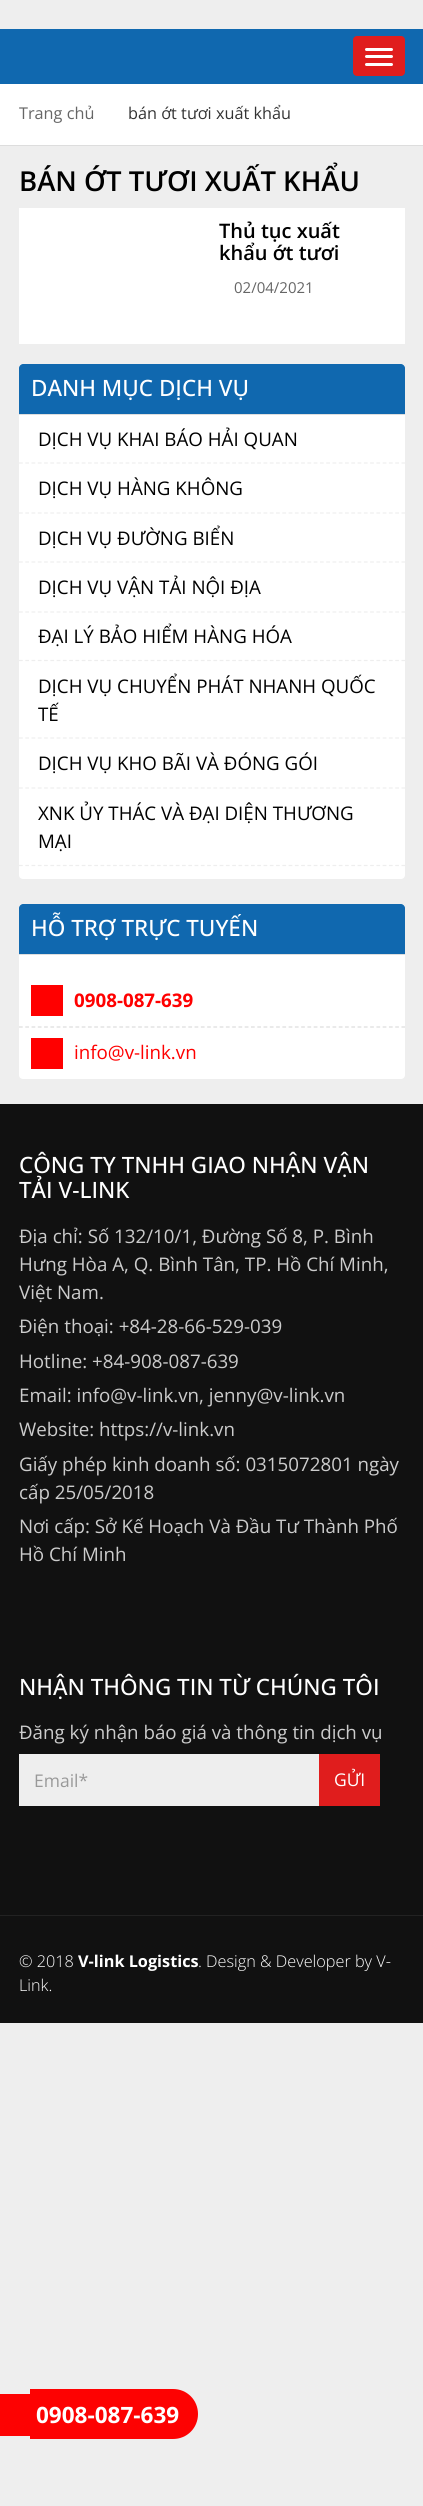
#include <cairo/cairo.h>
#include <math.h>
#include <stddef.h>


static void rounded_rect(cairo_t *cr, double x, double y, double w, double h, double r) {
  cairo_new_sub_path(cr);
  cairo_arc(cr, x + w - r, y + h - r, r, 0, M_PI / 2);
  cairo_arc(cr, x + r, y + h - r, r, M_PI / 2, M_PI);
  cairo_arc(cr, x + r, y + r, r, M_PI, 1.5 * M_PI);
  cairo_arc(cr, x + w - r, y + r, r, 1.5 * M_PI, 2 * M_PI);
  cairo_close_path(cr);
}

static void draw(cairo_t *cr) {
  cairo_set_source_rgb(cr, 238 / 255.0, 238 / 255.0, 238 / 255.0);
  cairo_paint(cr);
  cairo_set_source_rgb(cr, 16 / 255.0, 104 / 255.0, 175 / 255.0);
  cairo_rectangle(cr, 0, 29, 423, 55);
  cairo_fill(cr);
  cairo_set_source_rgb(cr, 224 / 255.0, 29 / 255.0, 29 / 255.0);
  rounded_rect(cr, 353, 36, 52, 40, 4);
  cairo_fill(cr);
  cairo_set_source_rgb(cr, 1, 1, 1);
  rounded_rect(cr, 365, 48, 28, 3, 1.5);
  cairo_fill(cr);
  rounded_rect(cr, 365, 55, 28, 3, 1.5);
  cairo_fill(cr);
  rounded_rect(cr, 365, 63, 28, 3, 1.5);
  cairo_fill(cr);
  cairo_rectangle(cr, 0, 84, 423, 61);
  cairo_fill(cr);
  cairo_set_source_rgb(cr, 221 / 255.0, 221 / 255.0, 221 / 255.0);
  cairo_rectangle(cr, 0, 145, 423, 1);
  cairo_fill(cr);
  cairo_set_source_rgb(cr, 1, 1, 1);
  cairo_rectangle(cr, 19, 208, 386, 136);
  cairo_fill(cr);
  rounded_rect(cr, 19, 364, 386, 515, 4);
  cairo_fill(cr);
  cairo_set_source_rgb(cr, 16 / 255.0, 104 / 255.0, 175 / 255.0);
  cairo_new_path(cr);
  cairo_move_to(cr, 23, 364);
  cairo_line_to(cr, 401, 364);
  cairo_curve_to(cr, 403, 364, 405, 366, 405, 368);
  cairo_line_to(cr, 405, 415);
  cairo_line_to(cr, 19, 415);
  cairo_line_to(cr, 19, 368);
  cairo_curve_to(cr, 19, 366, 21, 364, 23, 364);
  cairo_close_path(cr);
  cairo_fill(cr);
  cairo_set_source_rgb(cr, 221 / 255.0, 221 / 255.0, 221 / 255.0);
  cairo_rectangle(cr, 19, 414, 386, 1);
  cairo_fill(cr);
  cairo_new_path(cr);
  cairo_move_to(cr, 19, 463);
  cairo_line_to(cr, 405, 463);
  cairo_set_source_rgb(cr, 238 / 255.0, 238 / 255.0, 238 / 255.0);
  cairo_set_line_width(cr, 1.2);
  cairo_set_dash(cr, (double[]){3.75, 2.52}, 2, 0);
  cairo_stroke(cr);
  cairo_new_path(cr);
  cairo_move_to(cr, 19, 513);
  cairo_line_to(cr, 405, 513);
  cairo_stroke(cr);
  cairo_new_path(cr);
  cairo_move_to(cr, 19, 562);
  cairo_line_to(cr, 405, 562);
  cairo_stroke(cr);
  cairo_new_path(cr);
  cairo_move_to(cr, 19, 612);
  cairo_line_to(cr, 405, 612);
  cairo_stroke(cr);
  cairo_new_path(cr);
  cairo_move_to(cr, 19, 660.5);
  cairo_line_to(cr, 405, 660.5);
  cairo_stroke(cr);
  cairo_new_path(cr);
  cairo_move_to(cr, 19, 738);
  cairo_line_to(cr, 405, 738);
  cairo_stroke(cr);
  cairo_new_path(cr);
  cairo_move_to(cr, 19, 788);
  cairo_line_to(cr, 405, 788);
  cairo_stroke(cr);
  cairo_new_path(cr);
  cairo_move_to(cr, 19, 865.5);
  cairo_line_to(cr, 405, 865.5);
  cairo_stroke(cr);
  cairo_set_source_rgb(cr, 1, 1, 1);
  rounded_rect(cr, 19, 904, 386, 175, 4);
  cairo_fill(cr);
  cairo_set_source_rgb(cr, 16 / 255.0, 104 / 255.0, 175 / 255.0);
  cairo_new_path(cr);
  cairo_move_to(cr, 23, 904);
  cairo_line_to(cr, 401, 904);
  cairo_curve_to(cr, 403, 904, 405, 906, 405, 908);
  cairo_line_to(cr, 405, 955);
  cairo_line_to(cr, 19, 955);
  cairo_line_to(cr, 19, 908);
  cairo_curve_to(cr, 19, 906, 21, 904, 23, 904);
  cairo_close_path(cr);
  cairo_fill(cr);
  cairo_set_source_rgb(cr, 221 / 255.0, 221 / 255.0, 221 / 255.0);
  cairo_rectangle(cr, 19, 954, 386, 1);
  cairo_fill(cr);
  cairo_new_path(cr);
  cairo_move_to(cr, 19, 1027);
  cairo_line_to(cr, 405, 1027);
  cairo_stroke(cr);
  cairo_set_source_rgb(cr, 1, 0, 0);
  cairo_rectangle(cr, 31, 985, 32, 31);
  cairo_fill(cr);
  cairo_rectangle(cr, 31, 1038, 32, 31);
  cairo_fill(cr);
  cairo_set_source_rgb(cr, 17 / 255.0, 17 / 255.0, 17 / 255.0);
  cairo_rectangle(cr, 0, 1104, 423, 811);
  cairo_fill(cr);
  cairo_set_source_rgb(cr, 238 / 255.0, 238 / 255.0, 238 / 255.0);
  cairo_rectangle(cr, 19, 1754, 300, 52);
  cairo_fill(cr);
  cairo_set_source_rgb(cr, 224 / 255.0, 29 / 255.0, 29 / 255.0);
  cairo_rectangle(cr, 319, 1754, 61, 52);
  cairo_fill(cr);
  cairo_set_source_rgb(cr, 17 / 255.0, 17 / 255.0, 17 / 255.0);
  cairo_rectangle(cr, 0, 1916, 423, 107);
  cairo_fill(cr);
  cairo_set_source_rgb(cr, 34 / 255.0, 34 / 255.0, 34 / 255.0);
  cairo_rectangle(cr, 0, 1915, 423, 1);
  cairo_fill(cr);
  cairo_set_source_rgb(cr, 253 / 255.0, 2 / 255.0, 2 / 255.0);
  cairo_rectangle(cr, 0, 2394, 30, 42);
  cairo_fill(cr);
  cairo_new_path(cr);
  cairo_move_to(cr, 30, 2389);
  cairo_line_to(cr, 173, 2389);
  cairo_curve_to(cr, 187, 2389, 198, 2400, 198, 2414);
  cairo_curve_to(cr, 198, 2428, 187, 2439, 173, 2439);
  cairo_line_to(cr, 30, 2439);
  cairo_close_path(cr);
  cairo_fill(cr);
  cairo_select_font_face(cr, "Open Sans", CAIRO_FONT_SLANT_NORMAL, CAIRO_FONT_WEIGHT_NORMAL);
  cairo_set_font_size(cr, 16.25);
  cairo_set_source_rgb(cr, 102 / 255.0, 102 / 255.0, 102 / 255.0);
  cairo_move_to(cr, 19, 119);
  cairo_show_text(cr, "Trang chủ");
  cairo_set_source_rgb(cr, 51 / 255.0, 51 / 255.0, 51 / 255.0);
  cairo_move_to(cr, 128, 119);
  cairo_show_text(cr, "bán ớt tươi xuất khẩu");
  cairo_select_font_face(cr, "Open Sans SemiBold", CAIRO_FONT_SLANT_NORMAL, CAIRO_FONT_WEIGHT_NORMAL);
  cairo_set_font_size(cr, 27.5);
  cairo_set_source_rgb(cr, 0, 0, 0);
  cairo_move_to(cr, 19, 191);
  cairo_show_text(cr, "BÁN ỚT TƯƠI XUẤT KHẨU");
  cairo_set_font_size(cr, 20);
  cairo_move_to(cr, 219, 238);
  cairo_show_text(cr, "Thủ tục xuất");
  cairo_move_to(cr, 219, 260);
  cairo_show_text(cr, "khẩu ớt tươi");
  cairo_select_font_face(cr, "Open Sans", CAIRO_FONT_SLANT_NORMAL, CAIRO_FONT_WEIGHT_NORMAL);
  cairo_set_font_size(cr, 15);
  cairo_set_source_rgb(cr, 102 / 255.0, 102 / 255.0, 102 / 255.0);
  cairo_move_to(cr, 234, 293);
  cairo_show_text(cr, "02/04/2021");
  cairo_select_font_face(cr, "Open Sans Medium", CAIRO_FONT_SLANT_NORMAL, CAIRO_FONT_WEIGHT_NORMAL);
  cairo_set_font_size(cr, 22.5);
  cairo_set_source_rgb(cr, 1, 1, 1);
  cairo_move_to(cr, 31, 396);
  cairo_show_text(cr, "DANH MỤC DỊCH VỤ");
  cairo_select_font_face(cr, "Open Sans", CAIRO_FONT_SLANT_NORMAL, CAIRO_FONT_WEIGHT_NORMAL);
  cairo_set_font_size(cr, 18.75);
  cairo_set_source_rgb(cr, 0, 0, 0);
  cairo_move_to(cr, 38, 446);
  cairo_show_text(cr, "DỊCH VỤ KHAI BÁO HẢI QUAN");
  cairo_move_to(cr, 38, 495);
  cairo_show_text(cr, "DỊCH VỤ HÀNG KHÔNG");
  cairo_move_to(cr, 38, 545);
  cairo_show_text(cr, "DỊCH VỤ ĐƯỜNG BIỂN");
  cairo_move_to(cr, 38, 594);
  cairo_show_text(cr, "DỊCH VỤ VẬN TẢI NỘI ĐỊA");
  cairo_move_to(cr, 38, 643);
  cairo_show_text(cr, "ĐẠI LÝ BẢO HIỂM HÀNG HÓA");
  cairo_move_to(cr, 38, 693);
  cairo_show_text(cr, "DỊCH VỤ CHUYỂN PHÁT NHANH QUỐC");
  cairo_move_to(cr, 38, 721);
  cairo_show_text(cr, "TẾ");
  cairo_move_to(cr, 38, 770);
  cairo_show_text(cr, "DỊCH VỤ KHO BÃI VÀ ĐÓNG GÓI");
  cairo_move_to(cr, 38, 820);
  cairo_show_text(cr, "XNK ỦY THÁC VÀ ĐẠI DIỆN THƯƠNG");
  cairo_move_to(cr, 38, 848);
  cairo_show_text(cr, "MẠI");
  cairo_select_font_face(cr, "Open Sans Medium", CAIRO_FONT_SLANT_NORMAL, CAIRO_FONT_WEIGHT_NORMAL);
  cairo_set_font_size(cr, 22.5);
  cairo_set_source_rgb(cr, 1, 1, 1);
  cairo_move_to(cr, 31, 936);
  cairo_show_text(cr, "HỖ TRỢ TRỰC TUYẾN");
  cairo_select_font_face(cr, "Open Sans", CAIRO_FONT_SLANT_NORMAL, CAIRO_FONT_WEIGHT_BOLD);
  cairo_set_font_size(cr, 18.75);
  cairo_set_source_rgb(cr, 1, 0, 0);
  cairo_move_to(cr, 74, 1007);
  cairo_show_text(cr, "0908-087-639");
  cairo_select_font_face(cr, "Open Sans", CAIRO_FONT_SLANT_NORMAL, CAIRO_FONT_WEIGHT_NORMAL);
  cairo_move_to(cr, 74, 1059);
  cairo_show_text(cr, "info@v-link.vn");
  cairo_select_font_face(cr, "Open Sans Medium", CAIRO_FONT_SLANT_NORMAL, CAIRO_FONT_WEIGHT_NORMAL);
  cairo_set_font_size(cr, 22.5);
  cairo_set_source_rgb(cr, 1, 1, 1);
  cairo_move_to(cr, 19, 1173);
  cairo_show_text(cr, "CÔNG TY TNHH GIAO NHẬN VẬN");
  cairo_move_to(cr, 19, 1198);
  cairo_show_text(cr, "TẢI V-LINK");
  cairo_select_font_face(cr, "Open Sans", CAIRO_FONT_SLANT_NORMAL, CAIRO_FONT_WEIGHT_NORMAL);
  cairo_set_font_size(cr, 18.75);
  cairo_set_source_rgb(cr, 204 / 255.0, 204 / 255.0, 204 / 255.0);
  cairo_move_to(cr, 19, 1243);
  cairo_show_text(cr, "Địa chỉ: Số 132/10/1, Đường Số 8, P. Bình");
  cairo_move_to(cr, 19, 1271);
  cairo_show_text(cr, "Hưng Hòa A, Q. Bình Tân, TP. Hồ Chí Minh,");
  cairo_move_to(cr, 19, 1299);
  cairo_show_text(cr, "Việt Nam.");
  cairo_move_to(cr, 19, 1333);
  cairo_show_text(cr, "Điện thoại: +84-28-66-529-039");
  cairo_move_to(cr, 19, 1368);
  cairo_show_text(cr, "Hotline: +84-908-087-639");
  cairo_move_to(cr, 19, 1402);
  cairo_show_text(cr, "Email: info@v-link.vn, jenny@v-link.vn");
  cairo_move_to(cr, 19, 1436);
  cairo_show_text(cr, "Website: https://v-link.vn");
  cairo_move_to(cr, 19, 1471);
  cairo_show_text(cr, "Giấy phép kinh doanh số: 0315072801 ngày");
  cairo_move_to(cr, 19, 1499);
  cairo_show_text(cr, "cấp 25/05/2018");
  cairo_move_to(cr, 19, 1533);
  cairo_show_text(cr, "Nơi cấp: Sở Kế Hoạch Và Đầu Tư Thành Phố");
  cairo_move_to(cr, 19, 1561);
  cairo_show_text(cr, "Hồ Chí Minh");
  cairo_select_font_face(cr, "Open Sans Medium", CAIRO_FONT_SLANT_NORMAL, CAIRO_FONT_WEIGHT_NORMAL);
  cairo_set_font_size(cr, 22.5);
  cairo_set_source_rgb(cr, 1, 1, 1);
  cairo_move_to(cr, 19, 1695);
  cairo_show_text(cr, "NHẬN THÔNG TIN TỪ CHÚNG TÔI");
  cairo_select_font_face(cr, "Open Sans", CAIRO_FONT_SLANT_NORMAL, CAIRO_FONT_WEIGHT_NORMAL);
  cairo_set_font_size(cr, 18.75);
  cairo_set_source_rgb(cr, 204 / 255.0, 204 / 255.0, 204 / 255.0);
  cairo_move_to(cr, 19, 1739);
  cairo_show_text(cr, "Đăng ký nhận báo giá và thông tin dịch vụ");
  cairo_set_font_size(cr, 17.5);
  cairo_set_source_rgb(cr, 153 / 255.0, 153 / 255.0, 153 / 255.0);
  cairo_move_to(cr, 34, 1787);
  cairo_show_text(cr, "Email*");
  cairo_set_source_rgb(cr, 1, 1, 1);
  cairo_move_to(cr, 334, 1786);
  cairo_show_text(cr, "GỬI");
  cairo_select_font_face(cr, "Open Sans Light", CAIRO_FONT_SLANT_NORMAL, CAIRO_FONT_WEIGHT_NORMAL);
  cairo_set_font_size(cr, 16.25);
  cairo_move_to(cr, 19, 1967);
  cairo_show_text(cr, "© 2018");
  cairo_select_font_face(cr, "Open Sans", CAIRO_FONT_SLANT_NORMAL, CAIRO_FONT_WEIGHT_BOLD);
  cairo_move_to(cr, 78, 1967);
  cairo_show_text(cr, "V-link Logistics");
  cairo_select_font_face(cr, "Open Sans Light", CAIRO_FONT_SLANT_NORMAL, CAIRO_FONT_WEIGHT_NORMAL);
  cairo_move_to(cr, 198, 1967);
  cairo_show_text(cr, ". Design & Developer by V-");
  cairo_move_to(cr, 19, 1991);
  cairo_show_text(cr, "Link.");
  cairo_select_font_face(cr, "Open Sans", CAIRO_FONT_SLANT_NORMAL, CAIRO_FONT_WEIGHT_BOLD);
  cairo_set_font_size(cr, 22.5);
  cairo_move_to(cr, 36, 2423);
  cairo_show_text(cr, "0908-087-639");
}

int main(void) {
  cairo_surface_t *surface = cairo_image_surface_create(CAIRO_FORMAT_RGB24, 423, 2506);
  cairo_t *cr = cairo_create(surface);
  cairo_font_options_t *options = cairo_font_options_create();
  cairo_font_options_set_hint_metrics(options, CAIRO_HINT_METRICS_OFF);
  cairo_font_options_set_hint_style(options, CAIRO_HINT_STYLE_NONE);
  cairo_set_font_options(cr, options);
  cairo_set_miter_limit(cr, 4);
  draw(cr);
  cairo_surface_write_to_png(surface, "out.png");
  cairo_font_options_destroy(options);
  cairo_destroy(cr);
  cairo_surface_destroy(surface);
  return 0;
}
